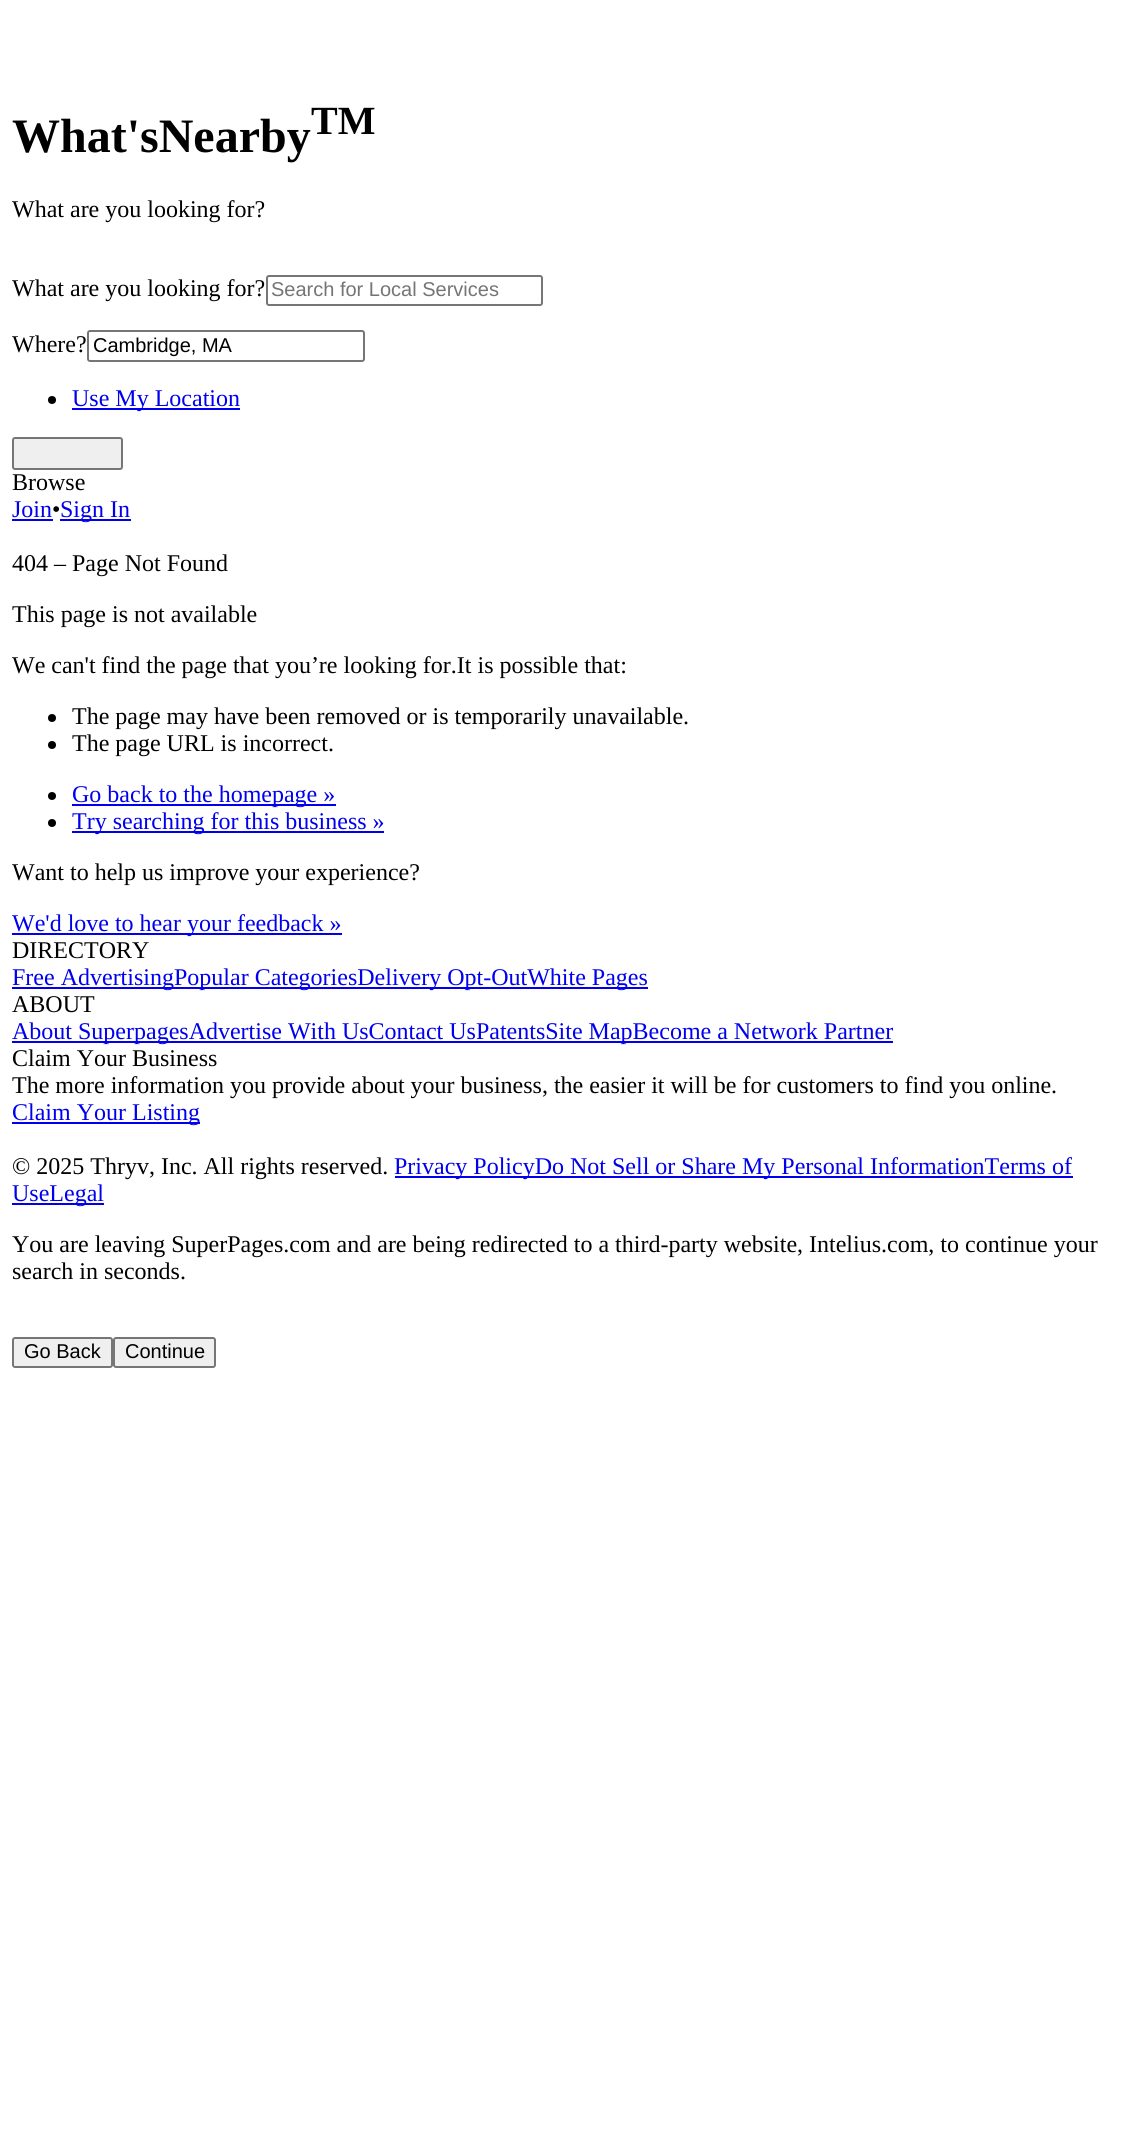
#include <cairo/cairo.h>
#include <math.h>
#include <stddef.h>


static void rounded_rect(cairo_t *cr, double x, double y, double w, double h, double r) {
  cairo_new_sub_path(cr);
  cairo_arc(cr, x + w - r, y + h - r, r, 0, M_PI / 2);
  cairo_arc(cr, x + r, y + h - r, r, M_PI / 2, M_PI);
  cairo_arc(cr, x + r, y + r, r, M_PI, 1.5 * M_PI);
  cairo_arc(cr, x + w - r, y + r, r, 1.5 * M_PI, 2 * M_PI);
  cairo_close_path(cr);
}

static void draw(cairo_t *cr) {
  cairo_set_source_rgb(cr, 1, 1, 1);
  cairo_paint(cr);
  rounded_rect(cr, 267, 276, 275, 29, 2);
  cairo_set_source_rgb(cr, 118 / 255.0, 118 / 255.0, 118 / 255.0);
  cairo_stroke(cr);
  rounded_rect(cr, 88, 331, 276, 30, 2);
  cairo_stroke(cr);
  cairo_set_source_rgb(cr, 0, 0, 0);
  cairo_arc(cr, 52, 400, 4, 0, 2 * M_PI);
  cairo_fill(cr);
  cairo_set_source_rgb(cr, 0, 0, 238 / 255.0);
  cairo_rectangle(cr, 72, 408, 168, 2);
  cairo_fill(cr);
  cairo_set_source_rgb(cr, 239 / 255.0, 239 / 255.0, 239 / 255.0);
  rounded_rect(cr, 13, 438, 109, 31, 2);
  cairo_fill_preserve(cr);
  cairo_set_source_rgb(cr, 118 / 255.0, 118 / 255.0, 118 / 255.0);
  cairo_stroke(cr);
  cairo_set_source_rgb(cr, 0, 0, 238 / 255.0);
  cairo_rectangle(cr, 12, 519, 41, 2);
  cairo_fill(cr);
  cairo_rectangle(cr, 60, 519, 71, 2);
  cairo_fill(cr);
  cairo_set_source_rgb(cr, 0, 0, 0);
  cairo_arc(cr, 52, 718, 4, 0, 2 * M_PI);
  cairo_fill(cr);
  cairo_arc(cr, 52, 745, 4, 0, 2 * M_PI);
  cairo_fill(cr);
  cairo_arc(cr, 52, 796, 4, 0, 2 * M_PI);
  cairo_fill(cr);
  cairo_set_source_rgb(cr, 0, 0, 238 / 255.0);
  cairo_rectangle(cr, 72, 804, 264, 2);
  cairo_fill(cr);
  cairo_set_source_rgb(cr, 0, 0, 0);
  cairo_arc(cr, 52, 823, 4, 0, 2 * M_PI);
  cairo_fill(cr);
  cairo_set_source_rgb(cr, 0, 0, 238 / 255.0);
  cairo_rectangle(cr, 72, 831, 312, 2);
  cairo_fill(cr);
  cairo_rectangle(cr, 12, 933, 330, 2);
  cairo_fill(cr);
  cairo_rectangle(cr, 12, 987, 636, 2);
  cairo_fill(cr);
  cairo_rectangle(cr, 12, 1041, 881, 2);
  cairo_fill(cr);
  cairo_rectangle(cr, 12, 1122, 188, 2);
  cairo_fill(cr);
  cairo_rectangle(cr, 395, 1176, 589, 2);
  cairo_fill(cr);
  cairo_rectangle(cr, 984, 1176, 89, 2);
  cairo_fill(cr);
  cairo_rectangle(cr, 12, 1203, 92, 2);
  cairo_fill(cr);
  cairo_set_source_rgb(cr, 239 / 255.0, 239 / 255.0, 239 / 255.0);
  rounded_rect(cr, 13, 1338, 99, 29, 2);
  cairo_fill_preserve(cr);
  cairo_set_source_rgb(cr, 118 / 255.0, 118 / 255.0, 118 / 255.0);
  cairo_stroke(cr);
  cairo_set_source_rgb(cr, 239 / 255.0, 239 / 255.0, 239 / 255.0);
  rounded_rect(cr, 114, 1338, 101, 29, 2);
  cairo_fill_preserve(cr);
  cairo_set_source_rgb(cr, 118 / 255.0, 118 / 255.0, 118 / 255.0);
  cairo_stroke(cr);
  cairo_select_font_face(cr, "Liberation Serif", CAIRO_FONT_SLANT_NORMAL, CAIRO_FONT_WEIGHT_BOLD);
  cairo_set_font_size(cr, 48);
  cairo_set_source_rgb(cr, 0, 0, 0);
  cairo_move_to(cr, 12, 152);
  cairo_show_text(cr, "What'sNearby");
  cairo_set_font_size(cr, 40);
  cairo_move_to(cr, 311, 134);
  cairo_show_text(cr, "TM");
  cairo_select_font_face(cr, "Liberation Serif", CAIRO_FONT_SLANT_NORMAL, CAIRO_FONT_WEIGHT_NORMAL);
  cairo_set_font_size(cr, 24);
  cairo_move_to(cr, 12, 217);
  cairo_show_text(cr, "What are you looking for?");
  cairo_move_to(cr, 12, 296);
  cairo_show_text(cr, "What are you looking for?");
  cairo_select_font_face(cr, "Liberation Sans", CAIRO_FONT_SLANT_NORMAL, CAIRO_FONT_WEIGHT_NORMAL);
  cairo_set_font_size(cr, 20);
  cairo_set_source_rgb(cr, 117 / 255.0, 117 / 255.0, 117 / 255.0);
  cairo_move_to(cr, 271, 296);
  cairo_show_text(cr, "Search for Local Services");
  cairo_select_font_face(cr, "Liberation Serif", CAIRO_FONT_SLANT_NORMAL, CAIRO_FONT_WEIGHT_NORMAL);
  cairo_set_font_size(cr, 24);
  cairo_set_source_rgb(cr, 0, 0, 0);
  cairo_move_to(cr, 12, 352);
  cairo_show_text(cr, "Where?");
  cairo_select_font_face(cr, "Liberation Sans", CAIRO_FONT_SLANT_NORMAL, CAIRO_FONT_WEIGHT_NORMAL);
  cairo_set_font_size(cr, 20);
  cairo_move_to(cr, 93, 352);
  cairo_show_text(cr, "Cambridge, MA");
  cairo_select_font_face(cr, "Liberation Serif", CAIRO_FONT_SLANT_NORMAL, CAIRO_FONT_WEIGHT_NORMAL);
  cairo_set_font_size(cr, 24);
  cairo_set_source_rgb(cr, 0, 0, 238 / 255.0);
  cairo_move_to(cr, 72, 406);
  cairo_show_text(cr, "Use My Location");
  cairo_set_source_rgb(cr, 0, 0, 0);
  cairo_move_to(cr, 12, 490);
  cairo_show_text(cr, "Browse");
  cairo_set_source_rgb(cr, 0, 0, 238 / 255.0);
  cairo_move_to(cr, 12, 517);
  cairo_show_text(cr, "Join");
  cairo_set_source_rgb(cr, 0, 0, 0);
  cairo_move_to(cr, 52, 517);
  cairo_show_text(cr, "•");
  cairo_set_source_rgb(cr, 0, 0, 238 / 255.0);
  cairo_move_to(cr, 60, 517);
  cairo_show_text(cr, "Sign In");
  cairo_set_source_rgb(cr, 0, 0, 0);
  cairo_move_to(cr, 12, 571);
  cairo_show_text(cr, "404 – Page Not Found");
  cairo_move_to(cr, 12, 622);
  cairo_show_text(cr, "This page is not available");
  cairo_move_to(cr, 12, 673);
  cairo_show_text(cr, "We can't find the page that you’re looking for.It is possible that:");
  cairo_move_to(cr, 72, 724);
  cairo_show_text(cr, "The page may have been removed or is temporarily unavailable.");
  cairo_move_to(cr, 72, 751);
  cairo_show_text(cr, "The page URL is incorrect.");
  cairo_set_source_rgb(cr, 0, 0, 238 / 255.0);
  cairo_move_to(cr, 72, 802);
  cairo_show_text(cr, "Go back to the homepage »");
  cairo_move_to(cr, 72, 829);
  cairo_show_text(cr, "Try searching for this business »");
  cairo_set_source_rgb(cr, 0, 0, 0);
  cairo_move_to(cr, 12, 880);
  cairo_show_text(cr, "Want to help us improve your experience?");
  cairo_set_source_rgb(cr, 0, 0, 238 / 255.0);
  cairo_move_to(cr, 12, 931);
  cairo_show_text(cr, "We'd love to hear your feedback »");
  cairo_set_source_rgb(cr, 0, 0, 0);
  cairo_move_to(cr, 12, 958);
  cairo_show_text(cr, "DIRECTORY");
  cairo_set_source_rgb(cr, 0, 0, 238 / 255.0);
  cairo_move_to(cr, 12, 985);
  cairo_show_text(cr, "Free AdvertisingPopular CategoriesDelivery Opt-OutWhite Pages");
  cairo_set_source_rgb(cr, 0, 0, 0);
  cairo_move_to(cr, 12, 1012);
  cairo_show_text(cr, "ABOUT");
  cairo_set_source_rgb(cr, 0, 0, 238 / 255.0);
  cairo_move_to(cr, 12, 1039);
  cairo_show_text(cr, "About SuperpagesAdvertise With UsContact UsPatentsSite MapBecome a Network Partner");
  cairo_set_source_rgb(cr, 0, 0, 0);
  cairo_move_to(cr, 12, 1066);
  cairo_show_text(cr, "Claim Your Business");
  cairo_move_to(cr, 12, 1093);
  cairo_show_text(cr, "The more information you provide about your business, the easier it will be for customers to find you online.");
  cairo_set_source_rgb(cr, 0, 0, 238 / 255.0);
  cairo_move_to(cr, 12, 1120);
  cairo_show_text(cr, "Claim Your Listing");
  cairo_set_source_rgb(cr, 0, 0, 0);
  cairo_move_to(cr, 12, 1174);
  cairo_show_text(cr, "© 2025 Thryv, Inc. All rights reserved.");
  cairo_set_source_rgb(cr, 0, 0, 238 / 255.0);
  cairo_move_to(cr, 394, 1174);
  cairo_show_text(cr, "Privacy PolicyDo Not Sell or Share My Personal InformationTerms of");
  cairo_move_to(cr, 12, 1201);
  cairo_show_text(cr, "UseLegal");
  cairo_set_source_rgb(cr, 0, 0, 0);
  cairo_move_to(cr, 12, 1252);
  cairo_show_text(cr, "You are leaving SuperPages.com and are being redirected to a third-party website, Intelius.com, to continue your");
  cairo_move_to(cr, 12, 1279);
  cairo_show_text(cr, "search in seconds.");
  cairo_select_font_face(cr, "Liberation Sans", CAIRO_FONT_SLANT_NORMAL, CAIRO_FONT_WEIGHT_NORMAL);
  cairo_set_font_size(cr, 20);
  cairo_move_to(cr, 24, 1358);
  cairo_show_text(cr, "Go Back");
  cairo_move_to(cr, 125, 1358);
  cairo_show_text(cr, "Continue");
}

int main(void) {
  cairo_surface_t *surface = cairo_image_surface_create(CAIRO_FORMAT_RGB24, 1142, 2144);
  cairo_t *cr = cairo_create(surface);
  cairo_font_options_t *options = cairo_font_options_create();
  cairo_font_options_set_hint_metrics(options, CAIRO_HINT_METRICS_OFF);
  cairo_font_options_set_hint_style(options, CAIRO_HINT_STYLE_NONE);
  cairo_set_font_options(cr, options);
  cairo_set_miter_limit(cr, 4);
  draw(cr);
  cairo_surface_write_to_png(surface, "out.png");
  cairo_font_options_destroy(options);
  cairo_destroy(cr);
  cairo_surface_destroy(surface);
  return 0;
}
